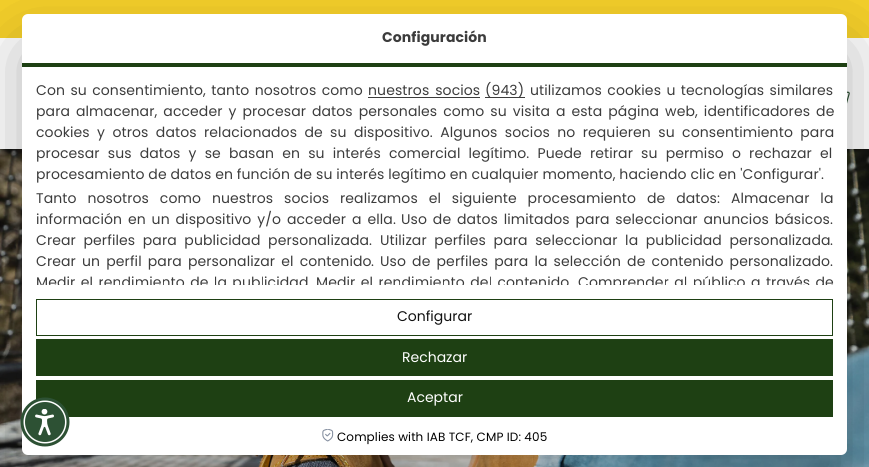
#include <cairo/cairo.h>
#include <math.h>
#include <stddef.h>


static void draw_spaced(cairo_t *cr, double x, double y, const char *s, double letter, double word) {
  cairo_move_to(cr, x, y);
  while (*s) {
    char ch[5] = {0};
    int n = 0;
    do ch[n++] = *s++; while ((*s & 0xC0) == 0x80);
    cairo_show_text(cr, ch);
    cairo_rel_move_to(cr, letter + word * (*ch == ' '), 0);
  }
}

static void rounded_rect(cairo_t *cr, double x, double y, double w, double h, double r) {
  cairo_new_sub_path(cr);
  cairo_arc(cr, x + w - r, y + h - r, r, 0, M_PI / 2);
  cairo_arc(cr, x + r, y + h - r, r, M_PI / 2, M_PI);
  cairo_arc(cr, x + r, y + r, r, M_PI, 1.5 * M_PI);
  cairo_arc(cr, x + w - r, y + r, r, 1.5 * M_PI, 2 * M_PI);
  cairo_close_path(cr);
}

static void draw_shadow(cairo_t *cr, double x, double y, double w, double h, double r, double blur, double alpha) {
  cairo_push_group_with_content(cr, CAIRO_CONTENT_ALPHA);
  cairo_set_operator(cr, CAIRO_OPERATOR_SOURCE);
  for (int i = 15; i >= -15 && fmin(w, h) + blur * i / 3 > 0; i -= 2) {
    double e = blur * i / 6;
    cairo_set_source_rgba(cr, 0, 0, 0, alpha * erfc((i - 1) / 8.5) / 2);
    rounded_rect(cr, x - e, y - e, w + 2 * e, h + 2 * e, fmax(0, fmin(r + e + blur * .6, fmin(w, h) / 2 + e)));
    cairo_fill(cr);
  }
  cairo_pattern_t *soft = cairo_pop_group(cr);
  cairo_mask(cr, soft);
  cairo_pattern_destroy(soft);
}

static void draw_image(cairo_t *cr, const char *path, double x, double y, double w, double h) {
  cairo_surface_t *image = cairo_image_surface_create_from_png(path);
  cairo_save(cr);
  cairo_set_source_surface(cr, image, x, y);
  cairo_rectangle(cr, x, y, w, h);
  cairo_fill(cr);
  cairo_restore(cr);
  cairo_surface_destroy(image);
}

static void draw(cairo_t *cr) {
  cairo_set_source_rgb(cr, 1, 1, 1);
  cairo_paint(cr);
  cairo_set_source_rgb(cr, 244 / 255.0, 207 / 255.0, 42 / 255.0);
  cairo_rectangle(cr, 0, 0, 869, 38);
  cairo_fill(cr);
  draw_image(cr, "images/1.png", 847, 91, 3, 13);
  draw_image(cr, "images/3.png", 0, 149, 869, 318);
  cairo_set_source_rgb(cr, 0, 0, 0);
  draw_shadow(cr, 22, 46, 825, 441, 6, 34, 0.3);
  cairo_set_source_rgb(cr, 1, 1, 1);
  rounded_rect(cr, 22, 14, 825, 441, 6);
  cairo_fill(cr);
  cairo_set_source_rgb(cr, 30 / 255.0, 64 / 255.0, 19 / 255.0);
  cairo_rectangle(cr, 22, 63, 825, 4);
  cairo_fill(cr);
  cairo_set_source_rgb(cr, 60 / 255.0, 60 / 255.0, 60 / 255.0);
  cairo_rectangle(cr, 368, 97, 112, 1);
  cairo_fill(cr);
  cairo_rectangle(cr, 485, 97, 40, 1);
  cairo_fill(cr);
  cairo_rectangle(cr, 36.5, 299.5, 796, 36);
  cairo_set_source_rgb(cr, 30 / 255.0, 64 / 255.0, 19 / 255.0);
  cairo_set_line_width(cr, 1);
  cairo_stroke(cr);
  cairo_rectangle(cr, 36, 339, 797, 37);
  cairo_fill(cr);
  cairo_rectangle(cr, 36, 380, 797, 37);
  cairo_fill(cr);
  draw_image(cr, "images/2.png", 322, 429, 12, 13);
  cairo_set_source_rgb(cr, 45 / 255.0, 81 / 255.0, 52 / 255.0);
  cairo_arc(cr, 45, 422, 24.5, 0, 2 * M_PI);
  cairo_fill(cr);
  cairo_set_source_rgb(cr, 1, 1, 1);
  cairo_arc(cr, 45, 422, 21.5, 0, 2 * M_PI);
  cairo_fill(cr);
  cairo_set_source_rgb(cr, 45 / 255.0, 81 / 255.0, 52 / 255.0);
  cairo_arc(cr, 45, 422, 20, 0, 2 * M_PI);
  cairo_fill(cr);
  draw_image(cr, "images/4.png", 35, 409, 19, 27);
  cairo_select_font_face(cr, "Poppins", CAIRO_FONT_SLANT_NORMAL, CAIRO_FONT_WEIGHT_BOLD);
  cairo_set_font_size(cr, 14);
  cairo_set_source_rgb(cr, 60 / 255.0, 60 / 255.0, 60 / 255.0);
  draw_spaced(cr, 382, 42, "Configuración", 0.1, 0);
  cairo_select_font_face(cr, "Poppins", CAIRO_FONT_SLANT_NORMAL, CAIRO_FONT_WEIGHT_NORMAL);
  draw_spaced(cr, 36, 95, "Con su consentimiento, tanto nosotros como", 0.1, 1.5);
  draw_spaced(cr, 368, 95, "nuestros socios", 0.1, 2);
  draw_spaced(cr, 485, 95, "(943)", 0.1, 0);
  draw_spaced(cr, 530, 95, "utilizamos cookies u tecnologías similares", 0.1, 1.5);
  draw_spaced(cr, 36, 116, "para almacenar, acceder y procesar datos personales como su visita a esta página web, identificadores de", 0.1, 2.1);
  draw_spaced(cr, 36, 137, "cookies y otros datos relacionados de su dispositivo. Algunos socios no requieren su consentimiento para", 0.1, 3.5);
  draw_spaced(cr, 36, 158, "procesar sus datos y se basan en su interés comercial legítimo. Puede retirar su permiso o rechazar el", 0.1, 4.25);
  draw_spaced(cr, 36, 179, "procesamiento de datos en función de su interés legítimo en cualquier momento, haciendo clic en 'Configurar'.", 0.1, 0);
  draw_spaced(cr, 36, 203, "Tanto nosotros como nuestros socios realizamos el siguiente procesamiento de datos:", 0.1, 7);
  draw_spaced(cr, 731, 203, "Almacenar la", 0.1, 7);
  draw_spaced(cr, 36, 224, "información en un dispositivo y/o acceder a ella", 0.1, 2);
  draw_spaced(cr, 393, 224, ".", 0.1, 0);
  draw_spaced(cr, 401, 224, "Uso de datos limitados para seleccionar anuncios básicos", 0.1, 2);
  draw_spaced(cr, 830, 224, ".", 0.1, 0);
  draw_spaced(cr, 36, 245, "Crear perfiles para publicidad personalizada", 0.1, 3.75);
  draw_spaced(cr, 369, 245, ".", 0.1, 0);
  draw_spaced(cr, 380, 245, "Utilizar perfiles para seleccionar la publicidad personalizada", 0.1, 3.75);
  draw_spaced(cr, 830, 245, ".", 0.1, 0);
  draw_spaced(cr, 36, 266, "Crear un perfil para personalizar el contenido", 0.1, 2.25);
  draw_spaced(cr, 371, 266, ".", 0.1, 0);
  draw_spaced(cr, 380, 266, "Uso de perfiles para la selección de contenido personalizado", 0.1, 2.25);
  draw_spaced(cr, 830, 266, ".", 0.1, 0);
  cairo_save(cr);
  cairo_rectangle(cr, 22, 67, 825, 218);
  cairo_clip(cr);
  draw_spaced(cr, 36, 287, "Medir el rendimiento de la publicidad", 0.1, 1.5);
  draw_spaced(cr, 316, 287, "Medir el rendimiento del contenido", 0.1, 1.5);
  draw_spaced(cr, 578, 287, "Comprender al público a través de", 0.1, 1.5);
  cairo_restore(cr);
  cairo_set_source_rgb(cr, 17 / 255.0, 17 / 255.0, 17 / 255.0);
  cairo_move_to(cr, 397, 321);
  cairo_show_text(cr, "Configurar");
  cairo_set_source_rgb(cr, 1, 1, 1);
  cairo_move_to(cr, 402, 362);
  cairo_show_text(cr, "Rechazar");
  cairo_move_to(cr, 407, 402);
  cairo_show_text(cr, "Aceptar");
  cairo_set_font_size(cr, 12);
  cairo_set_source_rgb(cr, 0, 0, 0);
  draw_spaced(cr, 337, 441, "Complies with IAB TCF, CMP ID: 405", 0.1, 0);
}

int main(void) {
  cairo_surface_t *surface = cairo_image_surface_create(CAIRO_FORMAT_RGB24, 869, 467);
  cairo_t *cr = cairo_create(surface);
  cairo_font_options_t *options = cairo_font_options_create();
  cairo_font_options_set_hint_metrics(options, CAIRO_HINT_METRICS_OFF);
  cairo_font_options_set_hint_style(options, CAIRO_HINT_STYLE_NONE);
  cairo_set_font_options(cr, options);
  cairo_set_miter_limit(cr, 4);
  draw(cr);
  cairo_surface_write_to_png(surface, "out.png");
  cairo_font_options_destroy(options);
  cairo_destroy(cr);
  cairo_surface_destroy(surface);
  return 0;
}
